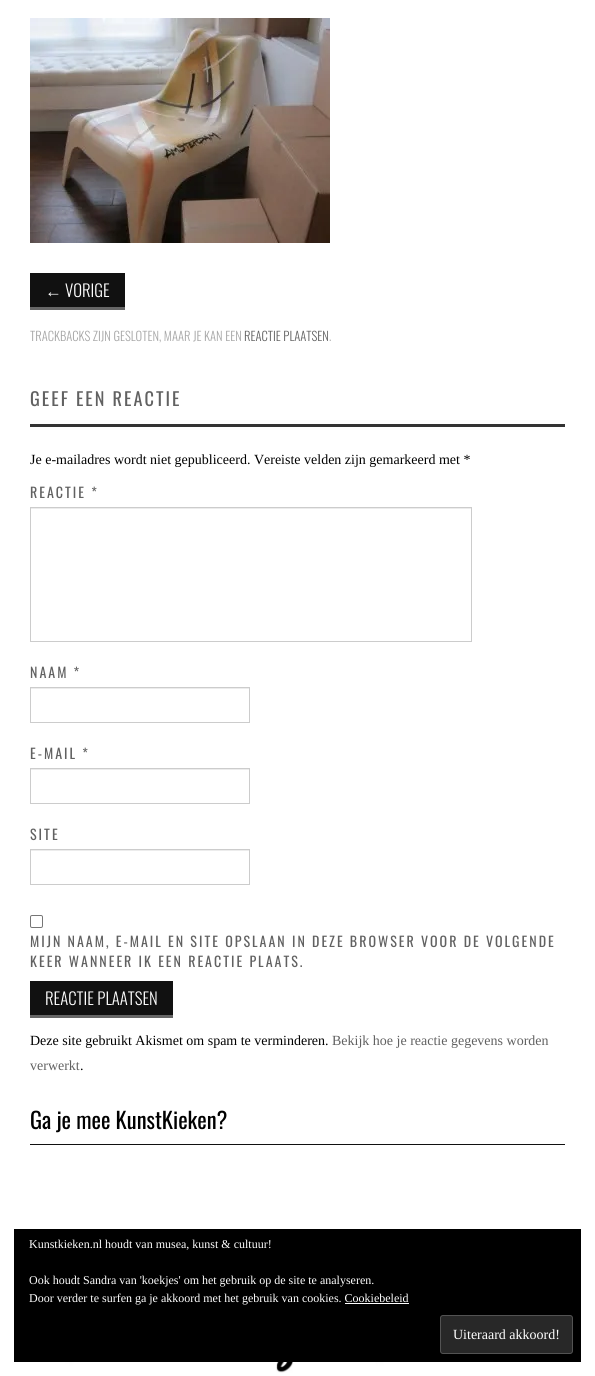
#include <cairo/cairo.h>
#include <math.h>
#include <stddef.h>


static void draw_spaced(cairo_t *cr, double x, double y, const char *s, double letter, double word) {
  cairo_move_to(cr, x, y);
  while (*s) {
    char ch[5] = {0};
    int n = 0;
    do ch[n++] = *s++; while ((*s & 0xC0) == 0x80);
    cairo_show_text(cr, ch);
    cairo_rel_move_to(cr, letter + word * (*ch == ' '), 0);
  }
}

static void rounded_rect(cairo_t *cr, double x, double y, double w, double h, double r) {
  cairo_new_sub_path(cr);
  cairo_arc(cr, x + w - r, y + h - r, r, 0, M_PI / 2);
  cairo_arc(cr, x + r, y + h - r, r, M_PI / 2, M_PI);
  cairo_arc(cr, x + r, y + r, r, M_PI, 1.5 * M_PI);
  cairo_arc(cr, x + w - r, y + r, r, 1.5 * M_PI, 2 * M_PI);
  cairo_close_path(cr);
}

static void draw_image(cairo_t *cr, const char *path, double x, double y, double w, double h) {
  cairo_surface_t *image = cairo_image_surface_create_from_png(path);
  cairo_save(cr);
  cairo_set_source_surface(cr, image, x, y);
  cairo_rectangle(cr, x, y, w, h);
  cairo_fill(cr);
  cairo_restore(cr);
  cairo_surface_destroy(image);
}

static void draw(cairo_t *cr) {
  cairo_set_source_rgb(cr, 1, 1, 1);
  cairo_paint(cr);
  draw_image(cr, "images/1.png", 30, 18, 300, 225);
  cairo_set_source_rgb(cr, 17 / 255.0, 17 / 255.0, 17 / 255.0);
  cairo_rectangle(cr, 30, 273, 95, 34);
  cairo_fill(cr);
  cairo_set_source_rgb(cr, 102 / 255.0, 102 / 255.0, 102 / 255.0);
  cairo_rectangle(cr, 30, 307, 95, 3);
  cairo_fill(cr);
  cairo_set_source_rgb(cr, 51 / 255.0, 51 / 255.0, 51 / 255.0);
  cairo_rectangle(cr, 30, 424, 535, 3);
  cairo_fill(cr);
  cairo_set_source_rgb(cr, 236 / 255.0, 236 / 255.0, 236 / 255.0);
  cairo_rectangle(cr, 31, 508, 440, 1);
  cairo_fill(cr);
  cairo_rectangle(cr, 30.5, 507.5, 441, 134);
  cairo_set_source_rgb(cr, 204 / 255.0, 204 / 255.0, 204 / 255.0);
  cairo_set_line_width(cr, 1);
  cairo_stroke(cr);
  cairo_set_source_rgb(cr, 236 / 255.0, 236 / 255.0, 236 / 255.0);
  cairo_rectangle(cr, 31, 688, 218, 1);
  cairo_fill(cr);
  cairo_rectangle(cr, 30.5, 687.5, 219, 35);
  cairo_set_source_rgb(cr, 204 / 255.0, 204 / 255.0, 204 / 255.0);
  cairo_stroke(cr);
  cairo_set_source_rgb(cr, 236 / 255.0, 236 / 255.0, 236 / 255.0);
  cairo_rectangle(cr, 31, 769, 218, 1);
  cairo_fill(cr);
  cairo_rectangle(cr, 30.5, 768.5, 219, 35);
  cairo_set_source_rgb(cr, 204 / 255.0, 204 / 255.0, 204 / 255.0);
  cairo_stroke(cr);
  cairo_set_source_rgb(cr, 236 / 255.0, 236 / 255.0, 236 / 255.0);
  cairo_rectangle(cr, 31, 850, 218, 1);
  cairo_fill(cr);
  cairo_rectangle(cr, 30.5, 849.5, 219, 35);
  cairo_set_source_rgb(cr, 204 / 255.0, 204 / 255.0, 204 / 255.0);
  cairo_stroke(cr);
  rounded_rect(cr, 30.5, 915.5, 12, 12, 1.5);
  cairo_set_source_rgb(cr, 118 / 255.0, 118 / 255.0, 118 / 255.0);
  cairo_stroke(cr);
  cairo_set_source_rgb(cr, 17 / 255.0, 17 / 255.0, 17 / 255.0);
  cairo_rectangle(cr, 30, 981, 143, 34);
  cairo_fill(cr);
  cairo_set_source_rgb(cr, 102 / 255.0, 102 / 255.0, 102 / 255.0);
  cairo_rectangle(cr, 30, 1015, 143, 3);
  cairo_fill(cr);
  cairo_set_source_rgb(cr, 17 / 255.0, 17 / 255.0, 17 / 255.0);
  cairo_rectangle(cr, 30, 1144, 535, 1);
  cairo_fill(cr);
  draw_image(cr, "images/2.png", 59, 1362, 359, 11);
  cairo_set_source_rgb(cr, 0, 0, 0);
  cairo_rectangle(cr, 14, 1229, 567, 133);
  cairo_fill(cr);
  cairo_set_source_rgb(cr, 1, 1, 1);
  cairo_rectangle(cr, 345, 1303, 64, 1);
  cairo_fill(cr);
  cairo_set_source_rgb(cr, 40 / 255.0, 40 / 255.0, 40 / 255.0);
  rounded_rect(cr, 440.5, 1315.5, 132, 38, 2.5);
  cairo_fill_preserve(cr);
  cairo_set_source_rgb(cr, 83 / 255.0, 83 / 255.0, 83 / 255.0);
  cairo_stroke(cr);
  cairo_select_font_face(cr, "Liberation Sans", CAIRO_FONT_SLANT_NORMAL, CAIRO_FONT_WEIGHT_NORMAL);
  cairo_set_font_size(cr, 16.75);
  cairo_set_source_rgb(cr, 1, 1, 1);
  cairo_move_to(cr, 45, 297);
  cairo_show_text(cr, "←");
  cairo_select_font_face(cr, "Oswald Light", CAIRO_FONT_SLANT_NORMAL, CAIRO_FONT_WEIGHT_NORMAL);
  cairo_move_to(cr, 65, 297);
  cairo_show_text(cr, "VORIGE");
  cairo_set_font_size(cr, 12.6);
  cairo_set_source_rgb(cr, 166 / 255.0, 166 / 255.0, 166 / 255.0);
  cairo_move_to(cr, 30, 341);
  cairo_show_text(cr, "TRACKBACKS ZIJN GESLOTEN, MAAR JE KAN EEN");
  cairo_set_source_rgb(cr, 97 / 255.0, 97 / 255.0, 97 / 255.0);
  cairo_move_to(cr, 244, 341);
  cairo_show_text(cr, "REACTIE PLAATSEN");
  cairo_set_source_rgb(cr, 166 / 255.0, 166 / 255.0, 166 / 255.0);
  cairo_move_to(cr, 329, 341);
  cairo_show_text(cr, ".");
  cairo_select_font_face(cr, "Oswald", CAIRO_FONT_SLANT_NORMAL, CAIRO_FONT_WEIGHT_NORMAL);
  cairo_set_font_size(cr, 18.25);
  cairo_set_source_rgb(cr, 97 / 255.0, 97 / 255.0, 97 / 255.0);
  draw_spaced(cr, 30, 406, "GEEF EEN REACTIE", 2, 0);
  cairo_select_font_face(cr, "Liberation Serif", CAIRO_FONT_SLANT_NORMAL, CAIRO_FONT_WEIGHT_NORMAL);
  cairo_set_font_size(cr, 14);
  cairo_set_source_rgb(cr, 0, 0, 0);
  cairo_move_to(cr, 30, 464);
  cairo_show_text(cr, "Je e-mailadres wordt niet gepubliceerd. Vereiste velden zijn gemarkeerd met *");
  cairo_select_font_face(cr, "Oswald", CAIRO_FONT_SLANT_NORMAL, CAIRO_FONT_WEIGHT_NORMAL);
  cairo_set_source_rgb(cr, 97 / 255.0, 97 / 255.0, 97 / 255.0);
  draw_spaced(cr, 30, 498, "REACTIE *", 2, 0);
  draw_spaced(cr, 30, 678, "NAAM *", 2, 0);
  draw_spaced(cr, 30, 759, "E-MAIL *", 2, 0);
  draw_spaced(cr, 30, 840, "SITE", 2, 0);
  draw_spaced(cr, 30, 947, "MIJN NAAM, E-MAIL EN SITE OPSLAAN IN DEZE BROWSER VOOR DE VOLGENDE", 2, 0);
  draw_spaced(cr, 30, 967, "KEER WANNEER IK EEN REACTIE PLAATS.", 2, 0);
  cairo_select_font_face(cr, "Oswald Light", CAIRO_FONT_SLANT_NORMAL, CAIRO_FONT_WEIGHT_NORMAL);
  cairo_set_font_size(cr, 16.75);
  cairo_set_source_rgb(cr, 1, 1, 1);
  cairo_move_to(cr, 45, 1005);
  cairo_show_text(cr, "REACTIE PLAATSEN");
  cairo_select_font_face(cr, "Liberation Serif", CAIRO_FONT_SLANT_NORMAL, CAIRO_FONT_WEIGHT_NORMAL);
  cairo_set_font_size(cr, 14);
  cairo_set_source_rgb(cr, 0, 0, 0);
  cairo_move_to(cr, 30, 1045);
  cairo_show_text(cr, "Deze site gebruikt Akismet om spam te verminderen.");
  cairo_set_source_rgb(cr, 97 / 255.0, 97 / 255.0, 97 / 255.0);
  cairo_move_to(cr, 332, 1045);
  cairo_show_text(cr, "Bekijk hoe je reactie gegevens worden");
  cairo_move_to(cr, 30, 1070);
  cairo_show_text(cr, "verwerkt");
  cairo_set_source_rgb(cr, 0, 0, 0);
  cairo_move_to(cr, 80, 1070);
  cairo_show_text(cr, ".");
  cairo_select_font_face(cr, "Oswald", CAIRO_FONT_SLANT_NORMAL, CAIRO_FONT_WEIGHT_NORMAL);
  cairo_set_font_size(cr, 22.5);
  cairo_move_to(cr, 30, 1129);
  cairo_show_text(cr, "Ga je mee KunstKieken?");
  cairo_select_font_face(cr, "Liberation Serif", CAIRO_FONT_SLANT_NORMAL, CAIRO_FONT_WEIGHT_NORMAL);
  cairo_set_font_size(cr, 12);
  cairo_set_source_rgb(cr, 1, 1, 1);
  cairo_move_to(cr, 29, 1248);
  cairo_show_text(cr, "Kunstkieken.nl houdt van musea, kunst & cultuur!");
  cairo_move_to(cr, 29, 1284);
  cairo_show_text(cr, "Ook houdt Sandra van 'koekjes' om het gebruik op de site te analyseren.");
  cairo_move_to(cr, 29, 1302);
  cairo_show_text(cr, "Door verder te surfen ga je akkoord met het gebruik van cookies. Cookiebeleid");
  cairo_set_font_size(cr, 14);
  cairo_move_to(cr, 453, 1339);
  cairo_show_text(cr, "Uiteraard akkoord!");
}

int main(void) {
  cairo_surface_t *surface = cairo_image_surface_create(CAIRO_FORMAT_RGB24, 595, 1376);
  cairo_t *cr = cairo_create(surface);
  cairo_font_options_t *options = cairo_font_options_create();
  cairo_font_options_set_hint_metrics(options, CAIRO_HINT_METRICS_OFF);
  cairo_font_options_set_hint_style(options, CAIRO_HINT_STYLE_NONE);
  cairo_set_font_options(cr, options);
  cairo_set_miter_limit(cr, 4);
  draw(cr);
  cairo_surface_write_to_png(surface, "out.png");
  cairo_font_options_destroy(options);
  cairo_destroy(cr);
  cairo_surface_destroy(surface);
  return 0;
}
